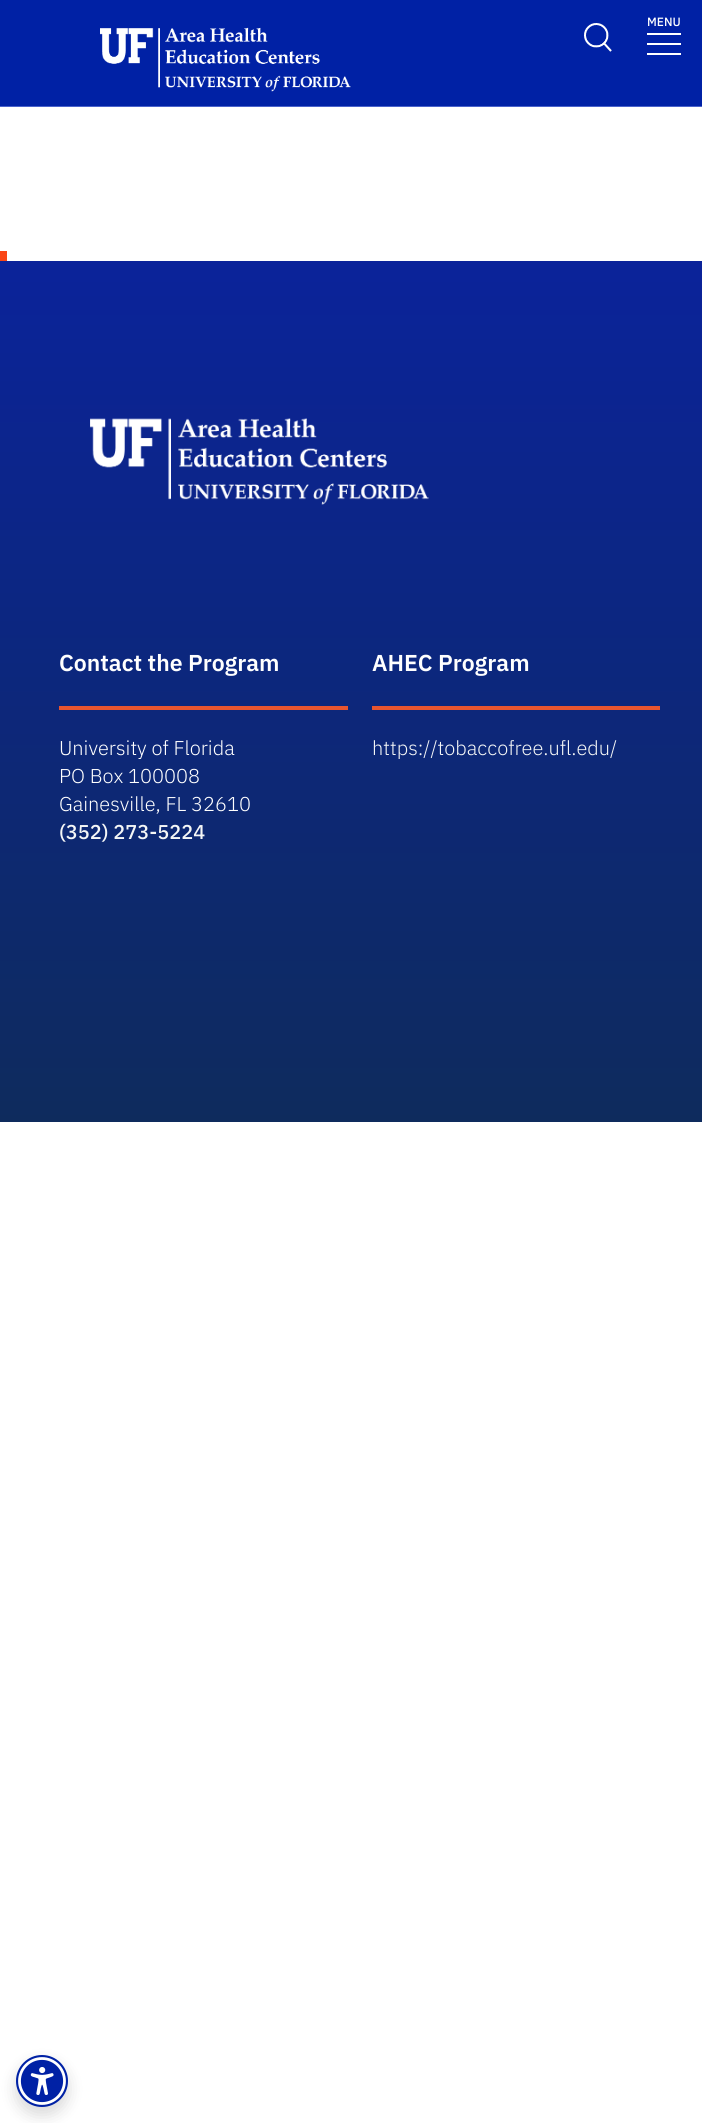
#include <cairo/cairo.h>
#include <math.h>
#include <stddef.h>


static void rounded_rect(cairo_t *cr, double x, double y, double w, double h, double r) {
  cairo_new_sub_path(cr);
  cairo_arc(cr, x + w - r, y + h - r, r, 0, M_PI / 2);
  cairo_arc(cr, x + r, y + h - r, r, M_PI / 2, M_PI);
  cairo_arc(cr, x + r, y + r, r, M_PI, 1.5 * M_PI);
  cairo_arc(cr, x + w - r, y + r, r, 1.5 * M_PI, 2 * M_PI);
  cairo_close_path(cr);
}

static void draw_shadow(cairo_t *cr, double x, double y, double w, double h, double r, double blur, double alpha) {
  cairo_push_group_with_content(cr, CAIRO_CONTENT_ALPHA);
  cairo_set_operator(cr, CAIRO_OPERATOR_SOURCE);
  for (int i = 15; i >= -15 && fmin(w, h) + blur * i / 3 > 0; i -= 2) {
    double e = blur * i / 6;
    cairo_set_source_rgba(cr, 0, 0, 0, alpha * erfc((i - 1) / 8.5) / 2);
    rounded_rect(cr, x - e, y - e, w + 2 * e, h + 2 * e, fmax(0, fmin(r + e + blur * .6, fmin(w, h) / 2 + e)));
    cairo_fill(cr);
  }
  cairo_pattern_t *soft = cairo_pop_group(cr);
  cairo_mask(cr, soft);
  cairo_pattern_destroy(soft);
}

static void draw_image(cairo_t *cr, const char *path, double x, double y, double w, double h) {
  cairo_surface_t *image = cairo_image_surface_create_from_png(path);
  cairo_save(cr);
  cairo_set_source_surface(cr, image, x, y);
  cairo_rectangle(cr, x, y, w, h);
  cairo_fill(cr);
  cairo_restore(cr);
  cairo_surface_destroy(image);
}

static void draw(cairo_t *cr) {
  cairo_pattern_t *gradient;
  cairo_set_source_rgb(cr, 1, 1, 1);
  cairo_paint(cr);
  cairo_set_source_rgb(cr, 0, 33 / 255.0, 165 / 255.0);
  cairo_rectangle(cr, 0, 0, 702, 106);
  cairo_fill(cr);
  cairo_set_source_rgb(cr, 74 / 255.0, 99 / 255.0, 203 / 255.0);
  cairo_rectangle(cr, 0, 106, 702, 1);
  cairo_fill(cr);
  cairo_set_source_rgb(cr, 1, 1, 1);
  cairo_rectangle(cr, 647, 43, 34, 2);
  cairo_fill(cr);
  cairo_rectangle(cr, 647, 33, 34, 2);
  cairo_fill(cr);
  cairo_rectangle(cr, 647, 53, 34, 2);
  cairo_fill(cr);
  draw_image(cr, "images/1.png", 584, 23, 28, 29);
  draw_image(cr, "images/2.png", 100, 27, 251, 65);
  cairo_set_source_rgb(cr, 250 / 255.0, 70 / 255.0, 22 / 255.0);
  cairo_rectangle(cr, 0, 251, 7, 10);
  cairo_fill(cr);
  gradient = cairo_pattern_create_linear(351, 261, 351, 1122);
  cairo_pattern_add_color_stop_rgba(gradient, 0, 11 / 255.0, 35 / 255.0, 154 / 255.0, 1);
  cairo_pattern_add_color_stop_rgba(gradient, 1, 14 / 255.0, 43 / 255.0, 93 / 255.0, 1);
  cairo_set_source(cr, gradient);
  cairo_pattern_destroy(gradient);
  cairo_rectangle(cr, 0, 261, 702, 861);
  cairo_fill(cr);
  draw_image(cr, "images/3.png", 90, 418, 339, 87);
  cairo_set_source_rgb(cr, 232 / 255.0, 85 / 255.0, 47 / 255.0);
  cairo_rectangle(cr, 59, 706, 289, 4);
  cairo_fill(cr);
  cairo_rectangle(cr, 372, 706, 288, 4);
  cairo_fill(cr);
  cairo_set_source_rgb(cr, 0, 0, 0);
  draw_shadow(cr, 16, 2063, 52, 52, 26, 8, 0.15);
  cairo_set_source_rgb(cr, 0, 33 / 255.0, 165 / 255.0);
  cairo_arc(cr, 42, 2081, 26, 0, 2 * M_PI);
  cairo_fill(cr);
  draw_image(cr, "images/4.png", 18, 2057, 48, 48);
  cairo_select_font_face(cr, "IBM Plex Sans Medium", CAIRO_FONT_SLANT_NORMAL, CAIRO_FONT_WEIGHT_NORMAL);
  cairo_set_font_size(cr, 12);
  cairo_set_source_rgb(cr, 1, 1, 1);
  cairo_move_to(cr, 647, 26);
  cairo_show_text(cr, "MENU");
  cairo_select_font_face(cr, "IBM Plex Sans SemiBold", CAIRO_FONT_SLANT_NORMAL, CAIRO_FONT_WEIGHT_NORMAL);
  cairo_set_font_size(cr, 23);
  cairo_move_to(cr, 59, 671);
  cairo_show_text(cr, "Contact the Program");
  cairo_select_font_face(cr, "IBM Plex Sans Light", CAIRO_FONT_SLANT_NORMAL, CAIRO_FONT_WEIGHT_NORMAL);
  cairo_set_font_size(cr, 20);
  cairo_move_to(cr, 59, 755);
  cairo_show_text(cr, "University of Florida");
  cairo_move_to(cr, 59, 783);
  cairo_show_text(cr, "PO Box 100008");
  cairo_move_to(cr, 59, 811);
  cairo_show_text(cr, "Gainesville, FL 32610");
  cairo_select_font_face(cr, "IBM Plex Sans Medium", CAIRO_FONT_SLANT_NORMAL, CAIRO_FONT_WEIGHT_NORMAL);
  cairo_set_source_rgb(cr, 244 / 255.0, 246 / 255.0, 246 / 255.0);
  cairo_move_to(cr, 59, 839);
  cairo_show_text(cr, "(352) 273-5224");
  cairo_select_font_face(cr, "IBM Plex Sans SemiBold", CAIRO_FONT_SLANT_NORMAL, CAIRO_FONT_WEIGHT_NORMAL);
  cairo_set_font_size(cr, 23);
  cairo_set_source_rgb(cr, 1, 1, 1);
  cairo_move_to(cr, 372, 671);
  cairo_show_text(cr, "AHEC Program");
  cairo_select_font_face(cr, "IBM Plex Sans Light", CAIRO_FONT_SLANT_NORMAL, CAIRO_FONT_WEIGHT_NORMAL);
  cairo_set_font_size(cr, 20);
  cairo_set_source_rgb(cr, 244 / 255.0, 246 / 255.0, 246 / 255.0);
  cairo_move_to(cr, 372, 755);
  cairo_show_text(cr, "https://tobaccofree.ufl.edu/");
}

int main(void) {
  cairo_surface_t *surface = cairo_image_surface_create(CAIRO_FORMAT_RGB24, 702, 2123);
  cairo_t *cr = cairo_create(surface);
  cairo_font_options_t *options = cairo_font_options_create();
  cairo_font_options_set_hint_metrics(options, CAIRO_HINT_METRICS_OFF);
  cairo_font_options_set_hint_style(options, CAIRO_HINT_STYLE_NONE);
  cairo_set_font_options(cr, options);
  cairo_set_miter_limit(cr, 4);
  draw(cr);
  cairo_surface_write_to_png(surface, "out.png");
  cairo_font_options_destroy(options);
  cairo_destroy(cr);
  cairo_surface_destroy(surface);
  return 0;
}
